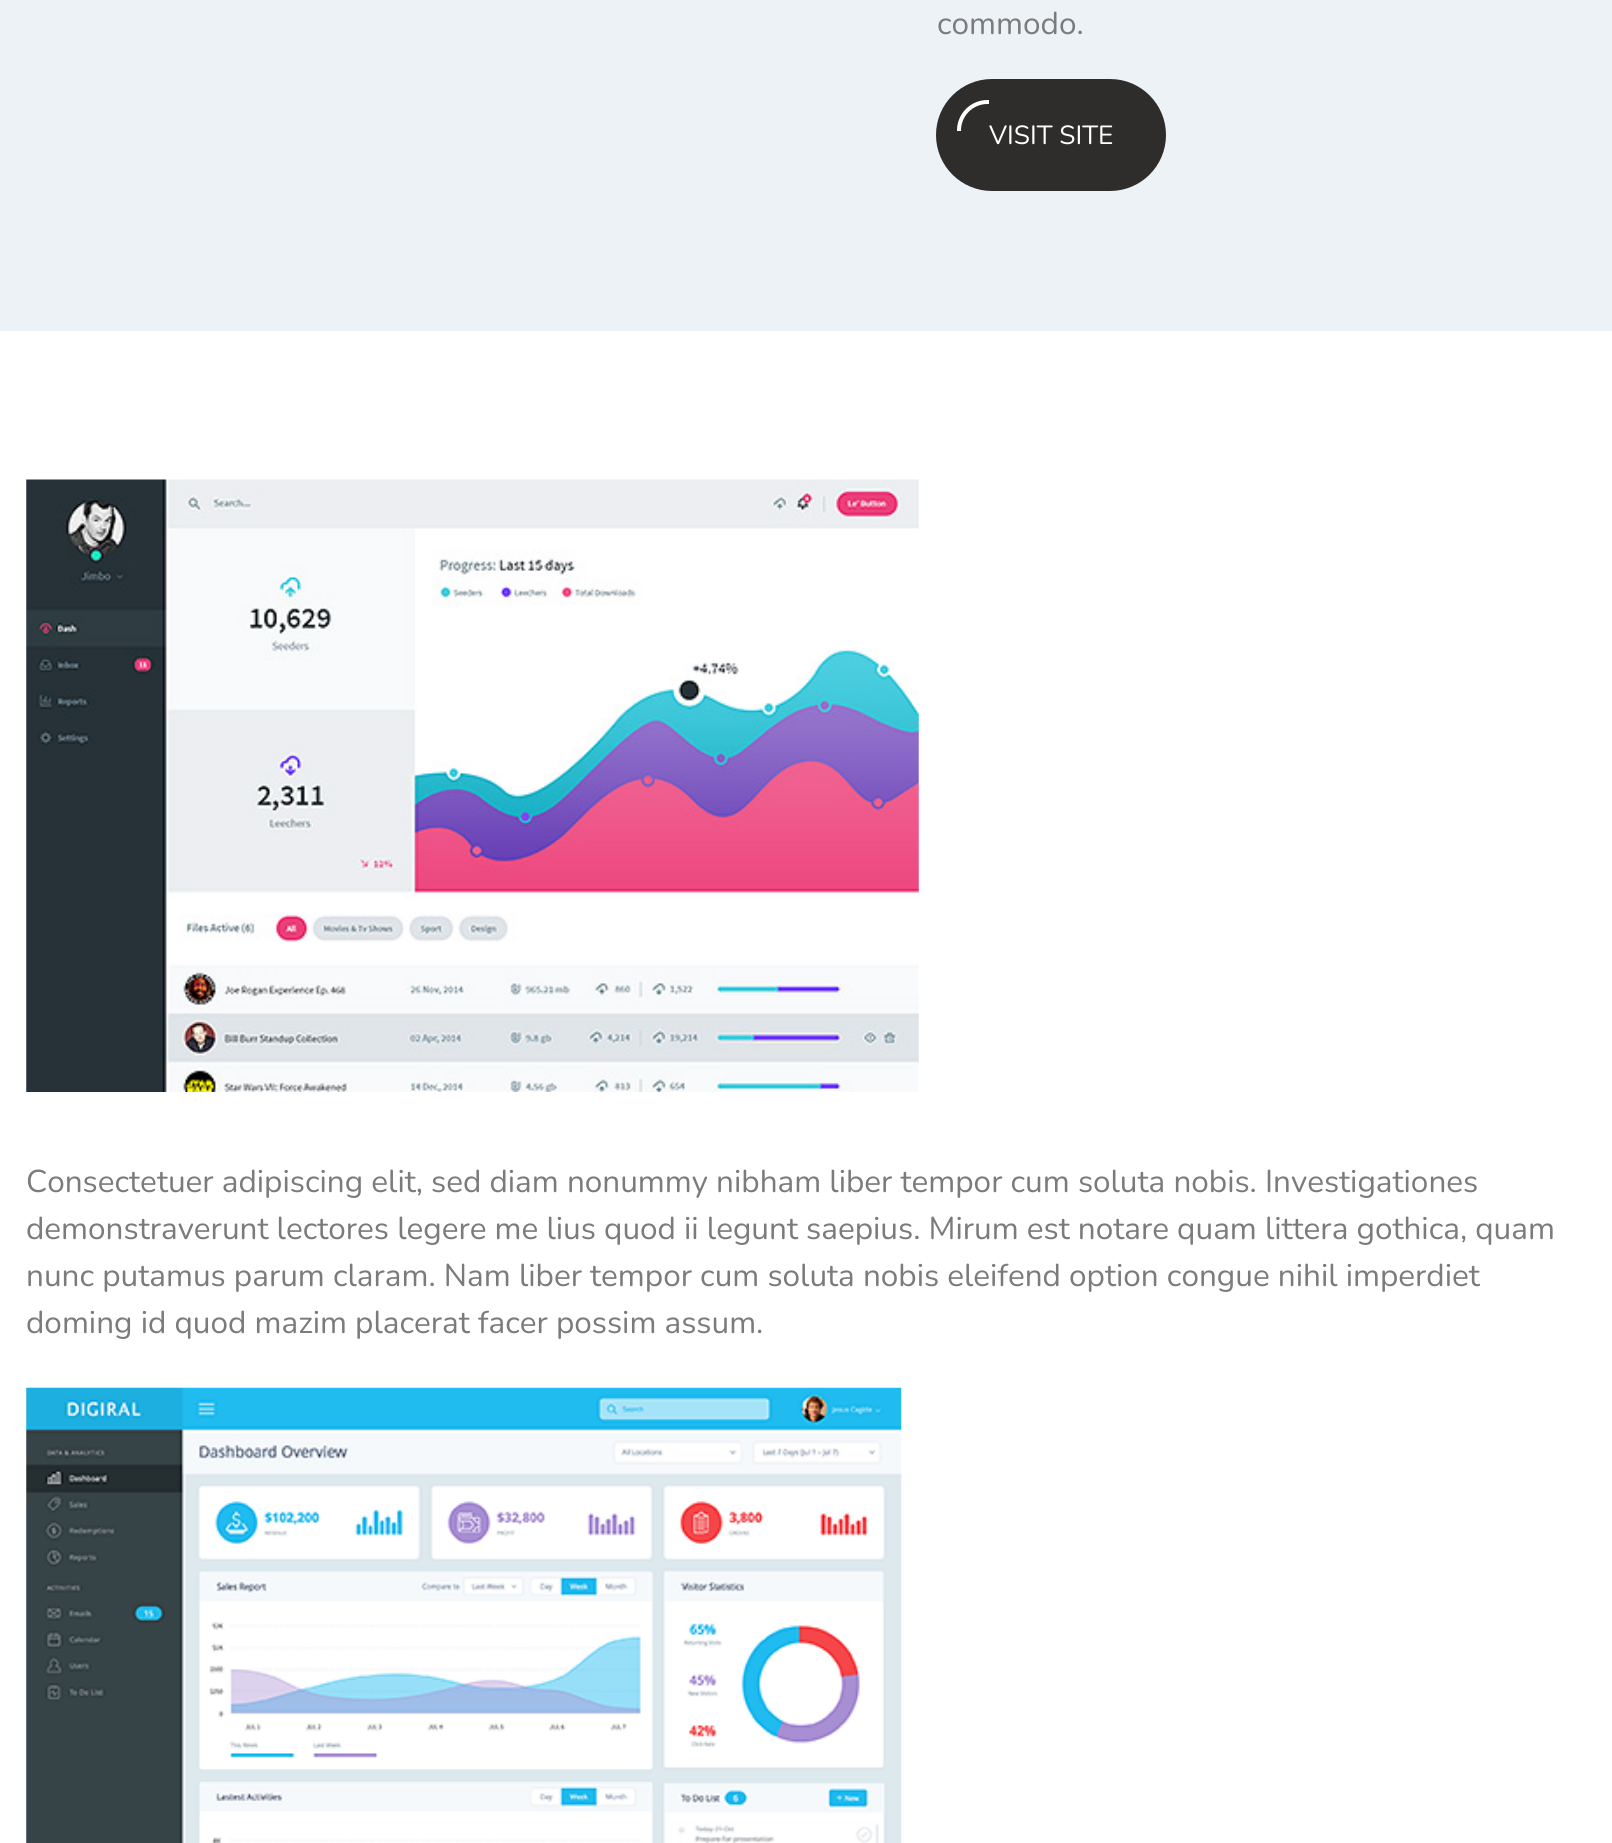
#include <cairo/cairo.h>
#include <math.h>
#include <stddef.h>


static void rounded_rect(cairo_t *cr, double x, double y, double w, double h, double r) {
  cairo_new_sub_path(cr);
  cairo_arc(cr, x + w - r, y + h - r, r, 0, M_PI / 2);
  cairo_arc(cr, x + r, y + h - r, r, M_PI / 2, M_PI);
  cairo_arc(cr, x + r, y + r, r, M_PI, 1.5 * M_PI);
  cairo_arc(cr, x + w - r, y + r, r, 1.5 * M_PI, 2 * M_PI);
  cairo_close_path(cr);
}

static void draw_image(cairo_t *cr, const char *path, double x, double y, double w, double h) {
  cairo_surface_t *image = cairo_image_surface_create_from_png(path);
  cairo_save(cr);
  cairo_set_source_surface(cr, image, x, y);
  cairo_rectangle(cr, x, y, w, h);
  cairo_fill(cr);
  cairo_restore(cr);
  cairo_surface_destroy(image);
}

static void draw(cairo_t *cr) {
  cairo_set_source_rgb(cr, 1, 1, 1);
  cairo_paint(cr);
  cairo_set_source_rgb(cr, 237 / 255.0, 242 / 255.0, 247 / 255.0);
  cairo_rectangle(cr, 0, 0, 1612, 331);
  cairo_fill(cr);
  cairo_set_source_rgb(cr, 47 / 255.0, 44 / 255.0, 44 / 255.0);
  rounded_rect(cr, 936, 79, 230, 112, 56);
  cairo_fill(cr);
  cairo_save(cr);
  cairo_rectangle(cr, 957, 100, 32, 31);
  cairo_clip(cr);
  rounded_rect(cr, 959, 102, 58, 57, 28.5);
  cairo_set_source_rgb(cr, 1, 1, 1);
  cairo_set_line_width(cr, 4);
  cairo_stroke(cr);
  cairo_restore(cr);
  draw_image(cr, "images/1.png", 26, 479, 893, 613);
  draw_image(cr, "images/2.png", 26, 1387, 876, 456);
  cairo_select_font_face(cr, "Nunito ExtraLight", CAIRO_FONT_SLANT_NORMAL, CAIRO_FONT_WEIGHT_NORMAL);
  cairo_set_font_size(cr, 31.5);
  cairo_set_source_rgb(cr, 123 / 255.0, 123 / 255.0, 123 / 255.0);
  cairo_move_to(cr, 937, 34);
  cairo_show_text(cr, "commodo.");
  cairo_set_font_size(cr, 26.25);
  cairo_set_source_rgb(cr, 1, 1, 1);
  cairo_move_to(cr, 989, 144);
  cairo_show_text(cr, "VISIT SITE");
  cairo_set_font_size(cr, 31.5);
  cairo_set_source_rgb(cr, 123 / 255.0, 123 / 255.0, 123 / 255.0);
  cairo_move_to(cr, 26, 1192);
  cairo_show_text(cr, "Consectetuer adipiscing elit, sed diam nonummy nibham liber tempor cum soluta nobis. Investigationes");
  cairo_move_to(cr, 26, 1239);
  cairo_show_text(cr, "demonstraverunt lectores legere me lius quod ii legunt saepius. Mirum est notare quam littera gothica, quam");
  cairo_move_to(cr, 26, 1286);
  cairo_show_text(cr, "nunc putamus parum claram. Nam liber tempor cum soluta nobis eleifend option congue nihil imperdiet");
  cairo_move_to(cr, 26, 1333);
  cairo_show_text(cr, "doming id quod mazim placerat facer possim assum.");
}

int main(void) {
  cairo_surface_t *surface = cairo_image_surface_create(CAIRO_FORMAT_RGB24, 1612, 1843);
  cairo_t *cr = cairo_create(surface);
  cairo_font_options_t *options = cairo_font_options_create();
  cairo_font_options_set_hint_metrics(options, CAIRO_HINT_METRICS_OFF);
  cairo_font_options_set_hint_style(options, CAIRO_HINT_STYLE_NONE);
  cairo_set_font_options(cr, options);
  cairo_set_miter_limit(cr, 4);
  draw(cr);
  cairo_surface_write_to_png(surface, "out.png");
  cairo_font_options_destroy(options);
  cairo_destroy(cr);
  cairo_surface_destroy(surface);
  return 0;
}
